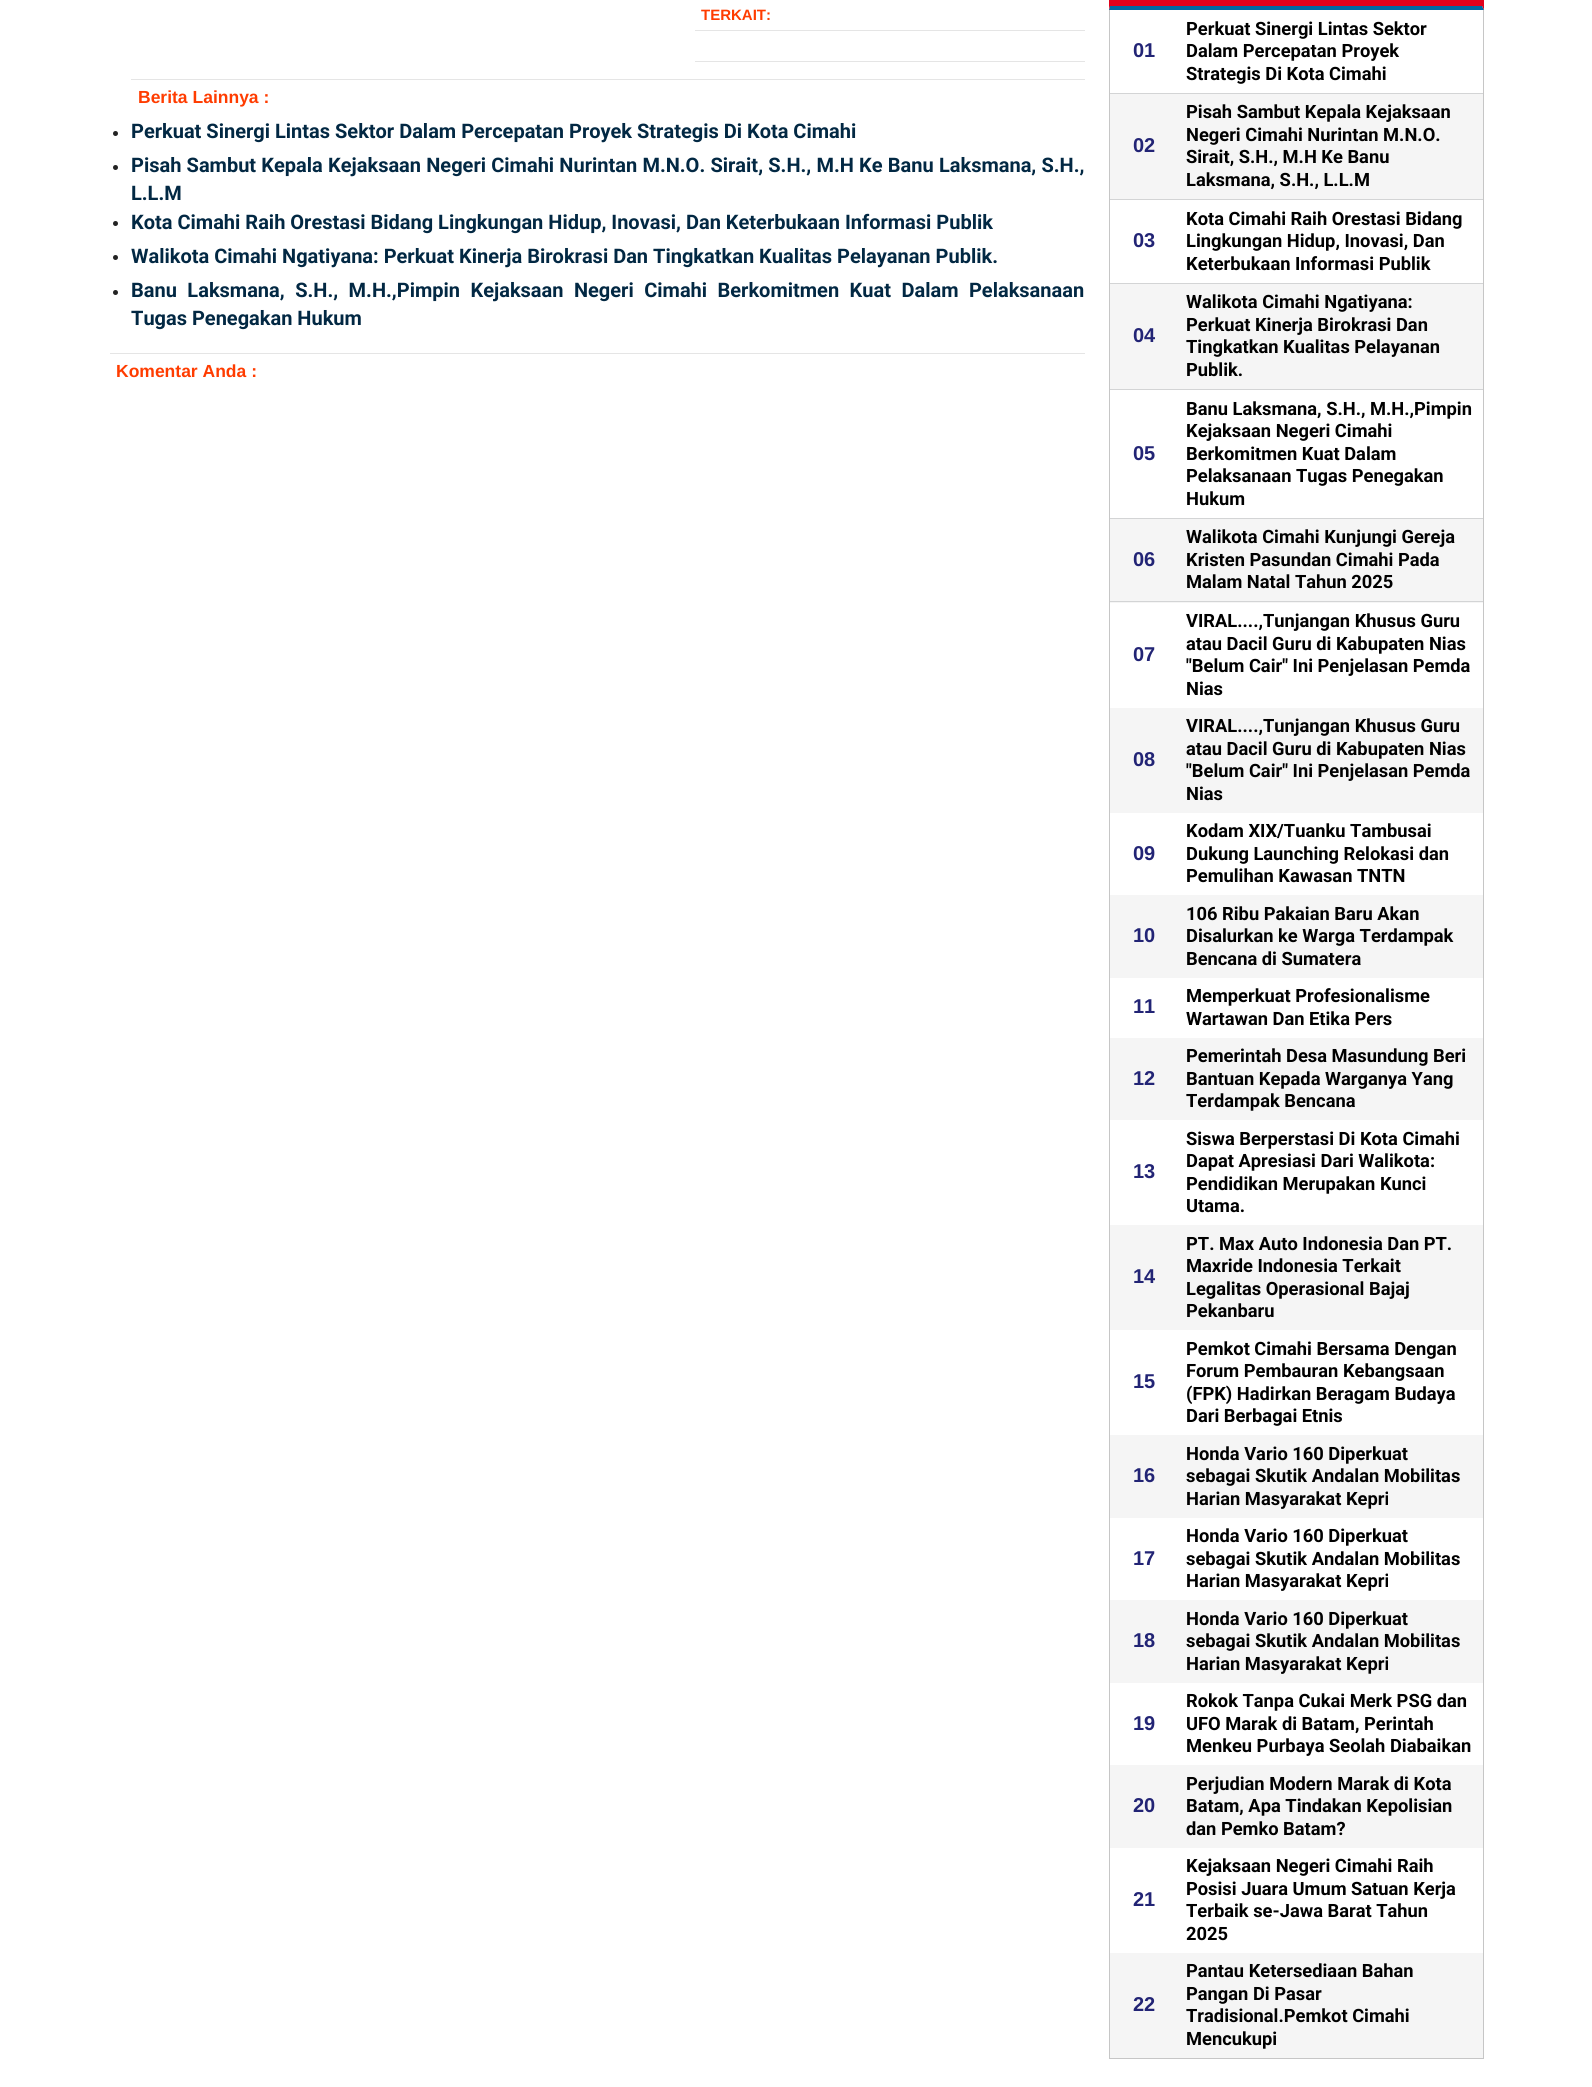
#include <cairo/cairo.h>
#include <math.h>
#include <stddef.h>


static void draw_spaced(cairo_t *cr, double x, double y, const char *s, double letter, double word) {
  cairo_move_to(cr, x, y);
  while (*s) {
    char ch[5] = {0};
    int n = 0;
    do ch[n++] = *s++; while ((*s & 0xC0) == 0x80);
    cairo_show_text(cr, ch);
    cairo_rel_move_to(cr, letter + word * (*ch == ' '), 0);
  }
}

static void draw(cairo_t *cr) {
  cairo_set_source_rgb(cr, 1, 1, 1);
  cairo_paint(cr);
  cairo_set_source_rgb(cr, 229 / 255.0, 229 / 255.0, 229 / 255.0);
  cairo_rectangle(cr, 695, 30, 390, 1);
  cairo_fill(cr);
  cairo_rectangle(cr, 695, 61, 390, 1);
  cairo_fill(cr);
  cairo_rectangle(cr, 131, 79, 954, 1);
  cairo_fill(cr);
  cairo_set_source_rgb(cr, 35 / 255.0, 35 / 255.0, 35 / 255.0);
  cairo_arc(cr, 115.5, 133.5, 2.5, 0, 2 * M_PI);
  cairo_fill(cr);
  cairo_arc(cr, 115.5, 167.5, 2.5, 0, 2 * M_PI);
  cairo_fill(cr);
  cairo_arc(cr, 115.5, 223.5, 2.5, 0, 2 * M_PI);
  cairo_fill(cr);
  cairo_arc(cr, 115.5, 257.5, 2.5, 0, 2 * M_PI);
  cairo_fill(cr);
  cairo_arc(cr, 115.5, 292.5, 2.5, 0, 2 * M_PI);
  cairo_fill(cr);
  cairo_set_source_rgb(cr, 229 / 255.0, 229 / 255.0, 229 / 255.0);
  cairo_rectangle(cr, 110, 353, 975, 1);
  cairo_fill(cr);
  cairo_set_source_rgb(cr, 225 / 255.0, 1 / 255.0, 27 / 255.0);
  cairo_rectangle(cr, 1110, 0, 373, 6);
  cairo_fill(cr);
  cairo_new_path(cr);
  cairo_move_to(cr, 1484, -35);
  cairo_line_to(cr, 1484, 10);
  cairo_line_to(cr, 1482, 6);
  cairo_line_to(cr, 1482, -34);
  cairo_close_path(cr);
  cairo_fill(cr);
  cairo_set_source_rgb(cr, 0, 104 / 255.0, 162 / 255.0);
  cairo_new_path(cr);
  cairo_move_to(cr, 1484, 10);
  cairo_line_to(cr, 1109, 10);
  cairo_line_to(cr, 1110, 6);
  cairo_line_to(cr, 1482, 6);
  cairo_close_path(cr);
  cairo_fill(cr);
  cairo_set_source_rgb(cr, 225 / 255.0, 1 / 255.0, 27 / 255.0);
  cairo_new_path(cr);
  cairo_move_to(cr, 1109, 10);
  cairo_line_to(cr, 1109, -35);
  cairo_line_to(cr, 1110, -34);
  cairo_line_to(cr, 1110, 6);
  cairo_close_path(cr);
  cairo_fill(cr);
  cairo_set_source_rgb(cr, 198 / 255.0, 198 / 255.0, 198 / 255.0);
  cairo_rectangle(cr, 1483, 10, 1, 2049);
  cairo_fill(cr);
  cairo_rectangle(cr, 1109, 2058, 375, 1);
  cairo_fill(cr);
  cairo_rectangle(cr, 1109, 10, 1, 2049);
  cairo_fill(cr);
  cairo_set_source_rgb(cr, 211 / 255.0, 212 / 255.0, 213 / 255.0);
  cairo_rectangle(cr, 1110, 93, 373, 1);
  cairo_fill(cr);
  cairo_set_source_rgb(cr, 245 / 255.0, 245 / 255.0, 245 / 255.0);
  cairo_rectangle(cr, 1110, 94, 373, 105);
  cairo_fill(cr);
  cairo_set_source_rgb(cr, 211 / 255.0, 212 / 255.0, 213 / 255.0);
  cairo_rectangle(cr, 1110, 199, 373, 1);
  cairo_fill(cr);
  cairo_rectangle(cr, 1110, 283, 373, 1);
  cairo_fill(cr);
  cairo_set_source_rgb(cr, 245 / 255.0, 245 / 255.0, 245 / 255.0);
  cairo_rectangle(cr, 1110, 284, 373, 105);
  cairo_fill(cr);
  cairo_set_source_rgb(cr, 211 / 255.0, 212 / 255.0, 213 / 255.0);
  cairo_rectangle(cr, 1110, 389, 373, 1);
  cairo_fill(cr);
  cairo_rectangle(cr, 1110, 518, 373, 1);
  cairo_fill(cr);
  cairo_set_source_rgb(cr, 245 / 255.0, 245 / 255.0, 245 / 255.0);
  cairo_rectangle(cr, 1110, 519, 373, 84);
  cairo_fill(cr);
  cairo_set_source_rgb(cr, 211 / 255.0, 212 / 255.0, 213 / 255.0);
  cairo_rectangle(cr, 1110, 601, 373, 1);
  cairo_fill(cr);
  cairo_set_source_rgb(cr, 245 / 255.0, 245 / 255.0, 245 / 255.0);
  cairo_rectangle(cr, 1110, 708, 373, 105);
  cairo_fill(cr);
  cairo_rectangle(cr, 1110, 895, 373, 83);
  cairo_fill(cr);
  cairo_rectangle(cr, 1110, 1038, 373, 82);
  cairo_fill(cr);
  cairo_rectangle(cr, 1110, 1225, 373, 105);
  cairo_fill(cr);
  cairo_rectangle(cr, 1110, 1435, 373, 83);
  cairo_fill(cr);
  cairo_rectangle(cr, 1110, 1600, 373, 83);
  cairo_fill(cr);
  cairo_rectangle(cr, 1110, 1765, 373, 83);
  cairo_fill(cr);
  cairo_rectangle(cr, 1110, 1953, 373, 105);
  cairo_fill(cr);
  cairo_select_font_face(cr, "Liberation Sans", CAIRO_FONT_SLANT_NORMAL, CAIRO_FONT_WEIGHT_BOLD);
  cairo_set_font_size(cr, 15);
  cairo_set_source_rgb(cr, 1, 60 / 255.0, 0);
  cairo_move_to(cr, 701, 20);
  cairo_show_text(cr, "TERKAIT:");
  cairo_set_font_size(cr, 17.5);
  cairo_move_to(cr, 138, 103);
  cairo_show_text(cr, "Berita Lainnya :");
  cairo_select_font_face(cr, "Roboto", CAIRO_FONT_SLANT_NORMAL, CAIRO_FONT_WEIGHT_BOLD);
  cairo_set_font_size(cr, 20);
  cairo_set_source_rgb(cr, 2 / 255.0, 40 / 255.0, 67 / 255.0);
  cairo_move_to(cr, 131, 138);
  cairo_show_text(cr, "Perkuat Sinergi Lintas Sektor Dalam Percepatan Proyek Strategis Di Kota Cimahi");
  draw_spaced(cr, 131, 172, "Pisah Sambut Kepala Kejaksaan Negeri Cimahi Nurintan M.N.O. Sirait, S.H., M.H Ke Banu Laksmana, S.H.,", 0, 0.25);
  cairo_move_to(cr, 131, 200);
  cairo_show_text(cr, "L.L.M");
  cairo_move_to(cr, 131, 229);
  cairo_show_text(cr, "Kota Cimahi Raih Orestasi Bidang Lingkungan Hidup, Inovasi, Dan Keterbukaan Informasi Publik");
  cairo_move_to(cr, 131, 263);
  cairo_show_text(cr, "Walikota Cimahi Ngatiyana: Perkuat Kinerja Birokrasi Dan Tingkatkan Kualitas Pelayanan Publik.");
  draw_spaced(cr, 131, 297, "Banu Laksmana, S.H., M.H.,Pimpin Kejaksaan Negeri Cimahi Berkomitmen Kuat Dalam Pelaksanaan", 0, 5.5);
  cairo_move_to(cr, 131, 325);
  cairo_show_text(cr, "Tugas Penegakan Hukum");
  cairo_select_font_face(cr, "Liberation Sans", CAIRO_FONT_SLANT_NORMAL, CAIRO_FONT_WEIGHT_BOLD);
  cairo_set_font_size(cr, 17.5);
  cairo_set_source_rgb(cr, 1, 60 / 255.0, 0);
  cairo_move_to(cr, 116, 377);
  cairo_show_text(cr, "Komentar Anda :");
  cairo_set_font_size(cr, 20);
  cairo_set_source_rgb(cr, 34 / 255.0, 36 / 255.0, 117 / 255.0);
  cairo_move_to(cr, 1133, 57);
  cairo_show_text(cr, "01");
  cairo_select_font_face(cr, "Roboto", CAIRO_FONT_SLANT_NORMAL, CAIRO_FONT_WEIGHT_BOLD);
  cairo_set_font_size(cr, 18.3);
  cairo_set_source_rgb(cr, 0, 0, 0);
  cairo_move_to(cr, 1186, 35);
  cairo_show_text(cr, "Perkuat Sinergi Lintas Sektor");
  cairo_move_to(cr, 1186, 57);
  cairo_show_text(cr, "Dalam Percepatan Proyek");
  cairo_move_to(cr, 1186, 80);
  cairo_show_text(cr, "Strategis Di Kota Cimahi");
  cairo_select_font_face(cr, "Liberation Sans", CAIRO_FONT_SLANT_NORMAL, CAIRO_FONT_WEIGHT_BOLD);
  cairo_set_font_size(cr, 20);
  cairo_set_source_rgb(cr, 34 / 255.0, 36 / 255.0, 117 / 255.0);
  cairo_move_to(cr, 1133, 152);
  cairo_show_text(cr, "02");
  cairo_select_font_face(cr, "Roboto", CAIRO_FONT_SLANT_NORMAL, CAIRO_FONT_WEIGHT_BOLD);
  cairo_set_font_size(cr, 18.3);
  cairo_set_source_rgb(cr, 0, 0, 0);
  cairo_move_to(cr, 1186, 118);
  cairo_show_text(cr, "Pisah Sambut Kepala Kejaksaan");
  cairo_move_to(cr, 1186, 141);
  cairo_show_text(cr, "Negeri Cimahi Nurintan M.N.O.");
  cairo_move_to(cr, 1186, 163);
  cairo_show_text(cr, "Sirait, S.H., M.H Ke Banu");
  cairo_move_to(cr, 1186, 186);
  cairo_show_text(cr, "Laksmana, S.H., L.L.M");
  cairo_select_font_face(cr, "Liberation Sans", CAIRO_FONT_SLANT_NORMAL, CAIRO_FONT_WEIGHT_BOLD);
  cairo_set_font_size(cr, 20);
  cairo_set_source_rgb(cr, 34 / 255.0, 36 / 255.0, 117 / 255.0);
  cairo_move_to(cr, 1133, 247);
  cairo_show_text(cr, "03");
  cairo_select_font_face(cr, "Roboto", CAIRO_FONT_SLANT_NORMAL, CAIRO_FONT_WEIGHT_BOLD);
  cairo_set_font_size(cr, 18.3);
  cairo_set_source_rgb(cr, 0, 0, 0);
  cairo_move_to(cr, 1186, 225);
  cairo_show_text(cr, "Kota Cimahi Raih Orestasi Bidang");
  cairo_move_to(cr, 1186, 247);
  cairo_show_text(cr, "Lingkungan Hidup, Inovasi, Dan");
  cairo_move_to(cr, 1186, 270);
  cairo_show_text(cr, "Keterbukaan Informasi Publik");
  cairo_select_font_face(cr, "Liberation Sans", CAIRO_FONT_SLANT_NORMAL, CAIRO_FONT_WEIGHT_BOLD);
  cairo_set_font_size(cr, 20);
  cairo_set_source_rgb(cr, 34 / 255.0, 36 / 255.0, 117 / 255.0);
  cairo_move_to(cr, 1133, 342);
  cairo_show_text(cr, "04");
  cairo_select_font_face(cr, "Roboto", CAIRO_FONT_SLANT_NORMAL, CAIRO_FONT_WEIGHT_BOLD);
  cairo_set_font_size(cr, 18.3);
  cairo_set_source_rgb(cr, 0, 0, 0);
  cairo_move_to(cr, 1186, 308);
  cairo_show_text(cr, "Walikota Cimahi Ngatiyana:");
  cairo_move_to(cr, 1186, 331);
  cairo_show_text(cr, "Perkuat Kinerja Birokrasi Dan");
  cairo_move_to(cr, 1186, 353);
  cairo_show_text(cr, "Tingkatkan Kualitas Pelayanan");
  cairo_move_to(cr, 1186, 376);
  cairo_show_text(cr, "Publik.");
  cairo_select_font_face(cr, "Liberation Sans", CAIRO_FONT_SLANT_NORMAL, CAIRO_FONT_WEIGHT_BOLD);
  cairo_set_font_size(cr, 20);
  cairo_set_source_rgb(cr, 34 / 255.0, 36 / 255.0, 117 / 255.0);
  cairo_move_to(cr, 1133, 460);
  cairo_show_text(cr, "05");
  cairo_select_font_face(cr, "Roboto", CAIRO_FONT_SLANT_NORMAL, CAIRO_FONT_WEIGHT_BOLD);
  cairo_set_font_size(cr, 18.3);
  cairo_set_source_rgb(cr, 0, 0, 0);
  cairo_move_to(cr, 1186, 415);
  cairo_show_text(cr, "Banu Laksmana, S.H., M.H.,Pimpin");
  cairo_move_to(cr, 1186, 437);
  cairo_show_text(cr, "Kejaksaan Negeri Cimahi");
  cairo_move_to(cr, 1186, 460);
  cairo_show_text(cr, "Berkomitmen Kuat Dalam");
  cairo_move_to(cr, 1186, 482);
  cairo_show_text(cr, "Pelaksanaan Tugas Penegakan");
  cairo_move_to(cr, 1186, 505);
  cairo_show_text(cr, "Hukum");
  cairo_select_font_face(cr, "Liberation Sans", CAIRO_FONT_SLANT_NORMAL, CAIRO_FONT_WEIGHT_BOLD);
  cairo_set_font_size(cr, 20);
  cairo_set_source_rgb(cr, 34 / 255.0, 36 / 255.0, 117 / 255.0);
  cairo_move_to(cr, 1133, 566);
  cairo_show_text(cr, "06");
  cairo_select_font_face(cr, "Roboto", CAIRO_FONT_SLANT_NORMAL, CAIRO_FONT_WEIGHT_BOLD);
  cairo_set_font_size(cr, 18.3);
  cairo_set_source_rgb(cr, 0, 0, 0);
  cairo_move_to(cr, 1186, 543);
  cairo_show_text(cr, "Walikota Cimahi Kunjungi Gereja");
  cairo_move_to(cr, 1186, 566);
  cairo_show_text(cr, "Kristen Pasundan Cimahi Pada");
  cairo_move_to(cr, 1186, 588);
  cairo_show_text(cr, "Malam Natal Tahun 2025");
  cairo_select_font_face(cr, "Liberation Sans", CAIRO_FONT_SLANT_NORMAL, CAIRO_FONT_WEIGHT_BOLD);
  cairo_set_font_size(cr, 20);
  cairo_set_source_rgb(cr, 34 / 255.0, 36 / 255.0, 117 / 255.0);
  cairo_move_to(cr, 1133, 661);
  cairo_show_text(cr, "07");
  cairo_select_font_face(cr, "Roboto", CAIRO_FONT_SLANT_NORMAL, CAIRO_FONT_WEIGHT_BOLD);
  cairo_set_font_size(cr, 18.3);
  cairo_set_source_rgb(cr, 0, 0, 0);
  cairo_move_to(cr, 1186, 627);
  cairo_show_text(cr, "VIRAL....,Tunjangan Khusus Guru");
  cairo_move_to(cr, 1186, 650);
  cairo_show_text(cr, "atau Dacil Guru di Kabupaten Nias");
  cairo_move_to(cr, 1186, 672);
  cairo_show_text(cr, "\"Belum Cair\" Ini Penjelasan Pemda");
  cairo_move_to(cr, 1186, 695);
  cairo_show_text(cr, "Nias");
  cairo_select_font_face(cr, "Liberation Sans", CAIRO_FONT_SLANT_NORMAL, CAIRO_FONT_WEIGHT_BOLD);
  cairo_set_font_size(cr, 20);
  cairo_set_source_rgb(cr, 34 / 255.0, 36 / 255.0, 117 / 255.0);
  cairo_move_to(cr, 1133, 766);
  cairo_show_text(cr, "08");
  cairo_select_font_face(cr, "Roboto", CAIRO_FONT_SLANT_NORMAL, CAIRO_FONT_WEIGHT_BOLD);
  cairo_set_font_size(cr, 18.3);
  cairo_set_source_rgb(cr, 0, 0, 0);
  cairo_move_to(cr, 1186, 732);
  cairo_show_text(cr, "VIRAL....,Tunjangan Khusus Guru");
  cairo_move_to(cr, 1186, 755);
  cairo_show_text(cr, "atau Dacil Guru di Kabupaten Nias");
  cairo_move_to(cr, 1186, 777);
  cairo_show_text(cr, "\"Belum Cair\" Ini Penjelasan Pemda");
  cairo_move_to(cr, 1186, 800);
  cairo_show_text(cr, "Nias");
  cairo_select_font_face(cr, "Liberation Sans", CAIRO_FONT_SLANT_NORMAL, CAIRO_FONT_WEIGHT_BOLD);
  cairo_set_font_size(cr, 20);
  cairo_set_source_rgb(cr, 34 / 255.0, 36 / 255.0, 117 / 255.0);
  cairo_move_to(cr, 1133, 860);
  cairo_show_text(cr, "09");
  cairo_select_font_face(cr, "Roboto", CAIRO_FONT_SLANT_NORMAL, CAIRO_FONT_WEIGHT_BOLD);
  cairo_set_font_size(cr, 18.3);
  cairo_set_source_rgb(cr, 0, 0, 0);
  cairo_move_to(cr, 1186, 837);
  cairo_show_text(cr, "Kodam XIX/Tuanku Tambusai");
  cairo_move_to(cr, 1186, 860);
  cairo_show_text(cr, "Dukung Launching Relokasi dan");
  cairo_move_to(cr, 1186, 882);
  cairo_show_text(cr, "Pemulihan Kawasan TNTN");
  cairo_select_font_face(cr, "Liberation Sans", CAIRO_FONT_SLANT_NORMAL, CAIRO_FONT_WEIGHT_BOLD);
  cairo_set_font_size(cr, 20);
  cairo_set_source_rgb(cr, 34 / 255.0, 36 / 255.0, 117 / 255.0);
  cairo_move_to(cr, 1133, 942);
  cairo_show_text(cr, "10");
  cairo_select_font_face(cr, "Roboto", CAIRO_FONT_SLANT_NORMAL, CAIRO_FONT_WEIGHT_BOLD);
  cairo_set_font_size(cr, 18.3);
  cairo_set_source_rgb(cr, 0, 0, 0);
  cairo_move_to(cr, 1186, 920);
  cairo_show_text(cr, "106 Ribu Pakaian Baru Akan");
  cairo_move_to(cr, 1186, 942);
  cairo_show_text(cr, "Disalurkan ke Warga Terdampak");
  cairo_move_to(cr, 1186, 965);
  cairo_show_text(cr, "Bencana di Sumatera");
  cairo_select_font_face(cr, "Liberation Sans", CAIRO_FONT_SLANT_NORMAL, CAIRO_FONT_WEIGHT_BOLD);
  cairo_set_font_size(cr, 20);
  cairo_set_source_rgb(cr, 34 / 255.0, 36 / 255.0, 117 / 255.0);
  cairo_move_to(cr, 1133, 1013);
  cairo_show_text(cr, "11");
  cairo_select_font_face(cr, "Roboto", CAIRO_FONT_SLANT_NORMAL, CAIRO_FONT_WEIGHT_BOLD);
  cairo_set_font_size(cr, 18.3);
  cairo_set_source_rgb(cr, 0, 0, 0);
  cairo_move_to(cr, 1186, 1002);
  cairo_show_text(cr, "Memperkuat Profesionalisme");
  cairo_move_to(cr, 1186, 1025);
  cairo_show_text(cr, "Wartawan Dan Etika Pers");
  cairo_select_font_face(cr, "Liberation Sans", CAIRO_FONT_SLANT_NORMAL, CAIRO_FONT_WEIGHT_BOLD);
  cairo_set_font_size(cr, 20);
  cairo_set_source_rgb(cr, 34 / 255.0, 36 / 255.0, 117 / 255.0);
  cairo_move_to(cr, 1133, 1085);
  cairo_show_text(cr, "12");
  cairo_select_font_face(cr, "Roboto", CAIRO_FONT_SLANT_NORMAL, CAIRO_FONT_WEIGHT_BOLD);
  cairo_set_font_size(cr, 18.3);
  cairo_set_source_rgb(cr, 0, 0, 0);
  cairo_move_to(cr, 1186, 1062);
  cairo_show_text(cr, "Pemerintah Desa Masundung Beri");
  cairo_move_to(cr, 1186, 1085);
  cairo_show_text(cr, "Bantuan Kepada Warganya Yang");
  cairo_move_to(cr, 1186, 1107);
  cairo_show_text(cr, "Terdampak Bencana");
  cairo_select_font_face(cr, "Liberation Sans", CAIRO_FONT_SLANT_NORMAL, CAIRO_FONT_WEIGHT_BOLD);
  cairo_set_font_size(cr, 20);
  cairo_set_source_rgb(cr, 34 / 255.0, 36 / 255.0, 117 / 255.0);
  cairo_move_to(cr, 1133, 1178);
  cairo_show_text(cr, "13");
  cairo_select_font_face(cr, "Roboto", CAIRO_FONT_SLANT_NORMAL, CAIRO_FONT_WEIGHT_BOLD);
  cairo_set_font_size(cr, 18.3);
  cairo_set_source_rgb(cr, 0, 0, 0);
  cairo_move_to(cr, 1186, 1145);
  cairo_show_text(cr, "Siswa Berperstasi Di Kota Cimahi");
  cairo_move_to(cr, 1186, 1167);
  cairo_show_text(cr, "Dapat Apresiasi Dari Walikota:");
  cairo_move_to(cr, 1186, 1190);
  cairo_show_text(cr, "Pendidikan Merupakan Kunci");
  cairo_move_to(cr, 1186, 1212);
  cairo_show_text(cr, "Utama.");
  cairo_select_font_face(cr, "Liberation Sans", CAIRO_FONT_SLANT_NORMAL, CAIRO_FONT_WEIGHT_BOLD);
  cairo_set_font_size(cr, 20);
  cairo_set_source_rgb(cr, 34 / 255.0, 36 / 255.0, 117 / 255.0);
  cairo_move_to(cr, 1133, 1283);
  cairo_show_text(cr, "14");
  cairo_select_font_face(cr, "Roboto", CAIRO_FONT_SLANT_NORMAL, CAIRO_FONT_WEIGHT_BOLD);
  cairo_set_font_size(cr, 18.3);
  cairo_set_source_rgb(cr, 0, 0, 0);
  cairo_move_to(cr, 1186, 1250);
  cairo_show_text(cr, "PT. Max Auto Indonesia Dan PT.");
  cairo_move_to(cr, 1186, 1272);
  cairo_show_text(cr, "Maxride Indonesia Terkait");
  cairo_move_to(cr, 1186, 1295);
  cairo_show_text(cr, "Legalitas Operasional Bajaj");
  cairo_move_to(cr, 1186, 1317);
  cairo_show_text(cr, "Pekanbaru");
  cairo_select_font_face(cr, "Liberation Sans", CAIRO_FONT_SLANT_NORMAL, CAIRO_FONT_WEIGHT_BOLD);
  cairo_set_font_size(cr, 20);
  cairo_set_source_rgb(cr, 34 / 255.0, 36 / 255.0, 117 / 255.0);
  cairo_move_to(cr, 1133, 1388);
  cairo_show_text(cr, "15");
  cairo_select_font_face(cr, "Roboto", CAIRO_FONT_SLANT_NORMAL, CAIRO_FONT_WEIGHT_BOLD);
  cairo_set_font_size(cr, 18.3);
  cairo_set_source_rgb(cr, 0, 0, 0);
  cairo_move_to(cr, 1186, 1355);
  cairo_show_text(cr, "Pemkot Cimahi Bersama Dengan");
  cairo_move_to(cr, 1186, 1377);
  cairo_show_text(cr, "Forum Pembauran Kebangsaan");
  cairo_move_to(cr, 1186, 1400);
  cairo_show_text(cr, "(FPK) Hadirkan Beragam Budaya");
  cairo_move_to(cr, 1186, 1422);
  cairo_show_text(cr, "Dari Berbagai Etnis");
  cairo_select_font_face(cr, "Liberation Sans", CAIRO_FONT_SLANT_NORMAL, CAIRO_FONT_WEIGHT_BOLD);
  cairo_set_font_size(cr, 20);
  cairo_set_source_rgb(cr, 34 / 255.0, 36 / 255.0, 117 / 255.0);
  cairo_move_to(cr, 1133, 1482);
  cairo_show_text(cr, "16");
  cairo_select_font_face(cr, "Roboto", CAIRO_FONT_SLANT_NORMAL, CAIRO_FONT_WEIGHT_BOLD);
  cairo_set_font_size(cr, 18.3);
  cairo_set_source_rgb(cr, 0, 0, 0);
  cairo_move_to(cr, 1186, 1460);
  cairo_show_text(cr, "Honda Vario 160 Diperkuat");
  cairo_move_to(cr, 1186, 1482);
  cairo_show_text(cr, "sebagai Skutik Andalan Mobilitas");
  cairo_move_to(cr, 1186, 1505);
  cairo_show_text(cr, "Harian Masyarakat Kepri");
  cairo_select_font_face(cr, "Liberation Sans", CAIRO_FONT_SLANT_NORMAL, CAIRO_FONT_WEIGHT_BOLD);
  cairo_set_font_size(cr, 20);
  cairo_set_source_rgb(cr, 34 / 255.0, 36 / 255.0, 117 / 255.0);
  cairo_move_to(cr, 1133, 1565);
  cairo_show_text(cr, "17");
  cairo_select_font_face(cr, "Roboto", CAIRO_FONT_SLANT_NORMAL, CAIRO_FONT_WEIGHT_BOLD);
  cairo_set_font_size(cr, 18.3);
  cairo_set_source_rgb(cr, 0, 0, 0);
  cairo_move_to(cr, 1186, 1542);
  cairo_show_text(cr, "Honda Vario 160 Diperkuat");
  cairo_move_to(cr, 1186, 1565);
  cairo_show_text(cr, "sebagai Skutik Andalan Mobilitas");
  cairo_move_to(cr, 1186, 1587);
  cairo_show_text(cr, "Harian Masyarakat Kepri");
  cairo_select_font_face(cr, "Liberation Sans", CAIRO_FONT_SLANT_NORMAL, CAIRO_FONT_WEIGHT_BOLD);
  cairo_set_font_size(cr, 20);
  cairo_set_source_rgb(cr, 34 / 255.0, 36 / 255.0, 117 / 255.0);
  cairo_move_to(cr, 1133, 1647);
  cairo_show_text(cr, "18");
  cairo_select_font_face(cr, "Roboto", CAIRO_FONT_SLANT_NORMAL, CAIRO_FONT_WEIGHT_BOLD);
  cairo_set_font_size(cr, 18.3);
  cairo_set_source_rgb(cr, 0, 0, 0);
  cairo_move_to(cr, 1186, 1625);
  cairo_show_text(cr, "Honda Vario 160 Diperkuat");
  cairo_move_to(cr, 1186, 1647);
  cairo_show_text(cr, "sebagai Skutik Andalan Mobilitas");
  cairo_move_to(cr, 1186, 1670);
  cairo_show_text(cr, "Harian Masyarakat Kepri");
  cairo_select_font_face(cr, "Liberation Sans", CAIRO_FONT_SLANT_NORMAL, CAIRO_FONT_WEIGHT_BOLD);
  cairo_set_font_size(cr, 20);
  cairo_set_source_rgb(cr, 34 / 255.0, 36 / 255.0, 117 / 255.0);
  cairo_move_to(cr, 1133, 1730);
  cairo_show_text(cr, "19");
  cairo_select_font_face(cr, "Roboto", CAIRO_FONT_SLANT_NORMAL, CAIRO_FONT_WEIGHT_BOLD);
  cairo_set_font_size(cr, 18.3);
  cairo_set_source_rgb(cr, 0, 0, 0);
  cairo_move_to(cr, 1186, 1707);
  cairo_show_text(cr, "Rokok Tanpa Cukai Merk PSG dan");
  cairo_move_to(cr, 1186, 1730);
  cairo_show_text(cr, "UFO Marak di Batam, Perintah");
  cairo_move_to(cr, 1186, 1752);
  cairo_show_text(cr, "Menkeu Purbaya Seolah Diabaikan");
  cairo_select_font_face(cr, "Liberation Sans", CAIRO_FONT_SLANT_NORMAL, CAIRO_FONT_WEIGHT_BOLD);
  cairo_set_font_size(cr, 20);
  cairo_set_source_rgb(cr, 34 / 255.0, 36 / 255.0, 117 / 255.0);
  cairo_move_to(cr, 1133, 1812);
  cairo_show_text(cr, "20");
  cairo_select_font_face(cr, "Roboto", CAIRO_FONT_SLANT_NORMAL, CAIRO_FONT_WEIGHT_BOLD);
  cairo_set_font_size(cr, 18.3);
  cairo_set_source_rgb(cr, 0, 0, 0);
  cairo_move_to(cr, 1186, 1790);
  cairo_show_text(cr, "Perjudian Modern Marak di Kota");
  cairo_move_to(cr, 1186, 1812);
  cairo_show_text(cr, "Batam, Apa Tindakan Kepolisian");
  cairo_move_to(cr, 1186, 1835);
  cairo_show_text(cr, "dan Pemko Batam?");
  cairo_select_font_face(cr, "Liberation Sans", CAIRO_FONT_SLANT_NORMAL, CAIRO_FONT_WEIGHT_BOLD);
  cairo_set_font_size(cr, 20);
  cairo_set_source_rgb(cr, 34 / 255.0, 36 / 255.0, 117 / 255.0);
  cairo_move_to(cr, 1133, 1906);
  cairo_show_text(cr, "21");
  cairo_select_font_face(cr, "Roboto", CAIRO_FONT_SLANT_NORMAL, CAIRO_FONT_WEIGHT_BOLD);
  cairo_set_font_size(cr, 18.3);
  cairo_set_source_rgb(cr, 0, 0, 0);
  cairo_move_to(cr, 1186, 1872);
  cairo_show_text(cr, "Kejaksaan Negeri Cimahi Raih");
  cairo_move_to(cr, 1186, 1895);
  cairo_show_text(cr, "Posisi Juara Umum Satuan Kerja");
  cairo_move_to(cr, 1186, 1917);
  cairo_show_text(cr, "Terbaik se-Jawa Barat Tahun");
  cairo_move_to(cr, 1186, 1940);
  cairo_show_text(cr, "2025");
  cairo_select_font_face(cr, "Liberation Sans", CAIRO_FONT_SLANT_NORMAL, CAIRO_FONT_WEIGHT_BOLD);
  cairo_set_font_size(cr, 20);
  cairo_set_source_rgb(cr, 34 / 255.0, 36 / 255.0, 117 / 255.0);
  cairo_move_to(cr, 1133, 2011);
  cairo_show_text(cr, "22");
  cairo_select_font_face(cr, "Roboto", CAIRO_FONT_SLANT_NORMAL, CAIRO_FONT_WEIGHT_BOLD);
  cairo_set_font_size(cr, 18.3);
  cairo_set_source_rgb(cr, 0, 0, 0);
  cairo_move_to(cr, 1186, 1977);
  cairo_show_text(cr, "Pantau Ketersediaan Bahan");
  cairo_move_to(cr, 1186, 2000);
  cairo_show_text(cr, "Pangan Di Pasar");
  cairo_move_to(cr, 1186, 2022);
  cairo_show_text(cr, "Tradisional.Pemkot Cimahi");
  cairo_move_to(cr, 1186, 2045);
  cairo_show_text(cr, "Mencukupi");
}

int main(void) {
  cairo_surface_t *surface = cairo_image_surface_create(CAIRO_FORMAT_RGB24, 1592, 2087);
  cairo_t *cr = cairo_create(surface);
  cairo_font_options_t *options = cairo_font_options_create();
  cairo_font_options_set_hint_metrics(options, CAIRO_HINT_METRICS_OFF);
  cairo_font_options_set_hint_style(options, CAIRO_HINT_STYLE_NONE);
  cairo_set_font_options(cr, options);
  cairo_set_miter_limit(cr, 4);
  draw(cr);
  cairo_surface_write_to_png(surface, "out.png");
  cairo_font_options_destroy(options);
  cairo_destroy(cr);
  cairo_surface_destroy(surface);
  return 0;
}
